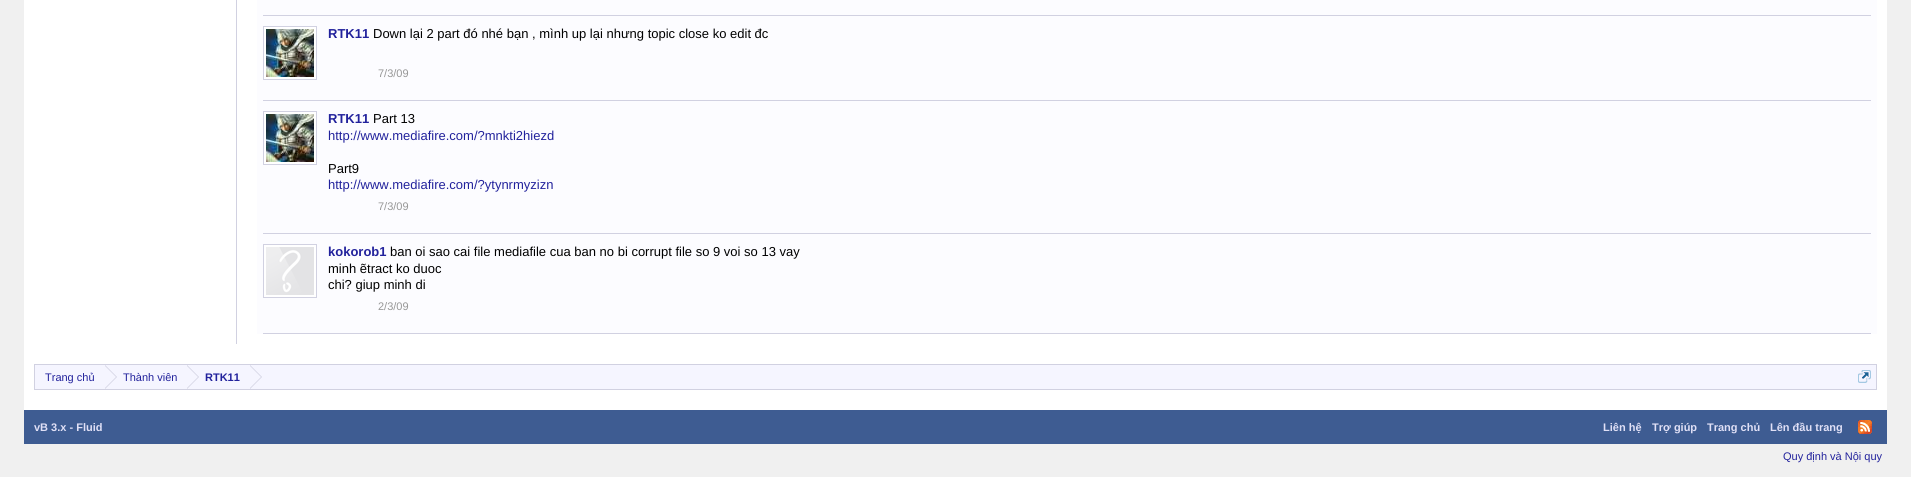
#include <cairo/cairo.h>
#include <math.h>
#include <stddef.h>


static void draw_image(cairo_t *cr, const char *path, double x, double y, double w, double h) {
  cairo_surface_t *image = cairo_image_surface_create_from_png(path);
  cairo_save(cr);
  cairo_set_source_surface(cr, image, x, y);
  cairo_rectangle(cr, x, y, w, h);
  cairo_fill(cr);
  cairo_restore(cr);
  cairo_surface_destroy(image);
}

static void draw(cairo_t *cr) {
  cairo_set_source_rgb(cr, 240 / 255.0, 240 / 255.0, 240 / 255.0);
  cairo_paint(cr);
  cairo_set_source_rgb(cr, 1, 1, 1);
  cairo_rectangle(cr, 24, 0, 1863, 410);
  cairo_fill(cr);
  cairo_set_source_rgb(cr, 209 / 255.0, 209 / 255.0, 225 / 255.0);
  cairo_rectangle(cr, 236, 0, 1, 344);
  cairo_fill(cr);
  cairo_set_source_rgb(cr, 252 / 255.0, 252 / 255.0, 1);
  cairo_rectangle(cr, 257, 0, 1620, 334);
  cairo_fill(cr);
  cairo_set_source_rgb(cr, 209 / 255.0, 209 / 255.0, 225 / 255.0);
  cairo_rectangle(cr, 263, 15, 1608, 1);
  cairo_fill(cr);
  cairo_rectangle(cr, 263, 100, 1608, 1);
  cairo_fill(cr);
  cairo_set_source_rgb(cr, 1, 1, 1);
  cairo_rectangle(cr, 263.5, 26.5, 53, 53);
  cairo_fill_preserve(cr);
  cairo_set_source_rgb(cr, 209 / 255.0, 209 / 255.0, 225 / 255.0);
  cairo_set_line_width(cr, 1);
  cairo_stroke(cr);
  draw_image(cr, "images/1.png", 266, 29, 48, 48);
  cairo_rectangle(cr, 263, 233, 1608, 1);
  cairo_fill(cr);
  cairo_set_source_rgb(cr, 1, 1, 1);
  cairo_rectangle(cr, 263.5, 111.5, 53, 53);
  cairo_fill_preserve(cr);
  cairo_set_source_rgb(cr, 209 / 255.0, 209 / 255.0, 225 / 255.0);
  cairo_stroke(cr);
  draw_image(cr, "images/1.png", 266, 114, 48, 48);
  cairo_rectangle(cr, 263, 333, 1608, 1);
  cairo_fill(cr);
  cairo_set_source_rgb(cr, 1, 1, 1);
  cairo_rectangle(cr, 263.5, 244.5, 53, 53);
  cairo_fill_preserve(cr);
  cairo_set_source_rgb(cr, 209 / 255.0, 209 / 255.0, 225 / 255.0);
  cairo_stroke(cr);
  draw_image(cr, "images/2.png", 266, 247, 48, 48);
  cairo_set_source_rgb(cr, 245 / 255.0, 245 / 255.0, 1);
  cairo_rectangle(cr, 34.5, 364.5, 1842, 25);
  cairo_fill_preserve(cr);
  cairo_set_source_rgb(cr, 209 / 255.0, 209 / 255.0, 225 / 255.0);
  cairo_stroke(cr);
  cairo_new_path(cr);
  cairo_move_to(cr, 105, 389);
  cairo_line_to(cr, 105, 365);
  cairo_line_to(cr, 117, 377);
  cairo_close_path(cr);
  cairo_fill(cr);
  cairo_set_source_rgb(cr, 245 / 255.0, 245 / 255.0, 1);
  cairo_new_path(cr);
  cairo_move_to(cr, 104, 389);
  cairo_line_to(cr, 104, 365);
  cairo_line_to(cr, 116, 377);
  cairo_close_path(cr);
  cairo_fill(cr);
  cairo_set_source_rgb(cr, 209 / 255.0, 209 / 255.0, 225 / 255.0);
  cairo_new_path(cr);
  cairo_move_to(cr, 187, 389);
  cairo_line_to(cr, 187, 365);
  cairo_line_to(cr, 199, 377);
  cairo_close_path(cr);
  cairo_fill(cr);
  cairo_set_source_rgb(cr, 245 / 255.0, 245 / 255.0, 1);
  cairo_new_path(cr);
  cairo_move_to(cr, 186, 389);
  cairo_line_to(cr, 186, 365);
  cairo_line_to(cr, 198, 377);
  cairo_close_path(cr);
  cairo_fill(cr);
  cairo_set_source_rgb(cr, 209 / 255.0, 209 / 255.0, 225 / 255.0);
  cairo_new_path(cr);
  cairo_move_to(cr, 250, 389);
  cairo_line_to(cr, 250, 365);
  cairo_line_to(cr, 262, 377);
  cairo_close_path(cr);
  cairo_fill(cr);
  cairo_set_source_rgb(cr, 245 / 255.0, 245 / 255.0, 1);
  cairo_new_path(cr);
  cairo_move_to(cr, 249, 389);
  cairo_line_to(cr, 249, 365);
  cairo_line_to(cr, 261, 377);
  cairo_close_path(cr);
  cairo_fill(cr);
  draw_image(cr, "images/3.png", 1858, 370, 13, 13);
  cairo_set_source_rgb(cr, 62 / 255.0, 92 / 255.0, 146 / 255.0);
  cairo_rectangle(cr, 24, 410, 1863, 34);
  cairo_fill(cr);
  draw_image(cr, "images/4.png", 1858, 420, 14, 14);
  cairo_select_font_face(cr, "Liberation Sans", CAIRO_FONT_SLANT_NORMAL, CAIRO_FONT_WEIGHT_BOLD);
  cairo_set_font_size(cr, 13);
  cairo_set_source_rgb(cr, 34 / 255.0, 34 / 255.0, 156 / 255.0);
  cairo_move_to(cr, 328, 38);
  cairo_show_text(cr, "RTK11");
  cairo_select_font_face(cr, "Liberation Sans", CAIRO_FONT_SLANT_NORMAL, CAIRO_FONT_WEIGHT_NORMAL);
  cairo_set_source_rgb(cr, 0, 0, 0);
  cairo_move_to(cr, 373, 38);
  cairo_show_text(cr, "Down lại 2 part đó nhé bạn , mình up lại nhưng topic close ko edit đc");
  cairo_set_font_size(cr, 11);
  cairo_set_source_rgb(cr, 150 / 255.0, 150 / 255.0, 150 / 255.0);
  cairo_move_to(cr, 378, 77);
  cairo_show_text(cr, "7/3/09");
  cairo_select_font_face(cr, "Liberation Sans", CAIRO_FONT_SLANT_NORMAL, CAIRO_FONT_WEIGHT_BOLD);
  cairo_set_font_size(cr, 13);
  cairo_set_source_rgb(cr, 34 / 255.0, 34 / 255.0, 156 / 255.0);
  cairo_move_to(cr, 328, 123);
  cairo_show_text(cr, "RTK11");
  cairo_select_font_face(cr, "Liberation Sans", CAIRO_FONT_SLANT_NORMAL, CAIRO_FONT_WEIGHT_NORMAL);
  cairo_set_source_rgb(cr, 0, 0, 0);
  cairo_move_to(cr, 373, 123);
  cairo_show_text(cr, "Part 13");
  cairo_set_source_rgb(cr, 34 / 255.0, 34 / 255.0, 156 / 255.0);
  cairo_move_to(cr, 328, 140);
  cairo_show_text(cr, "http://www.mediafire.com/?mnkti2hiezd");
  cairo_set_source_rgb(cr, 0, 0, 0);
  cairo_move_to(cr, 328, 173);
  cairo_show_text(cr, "Part9");
  cairo_set_source_rgb(cr, 34 / 255.0, 34 / 255.0, 156 / 255.0);
  cairo_move_to(cr, 328, 189);
  cairo_show_text(cr, "http://www.mediafire.com/?ytynrmyzizn");
  cairo_set_font_size(cr, 11);
  cairo_set_source_rgb(cr, 150 / 255.0, 150 / 255.0, 150 / 255.0);
  cairo_move_to(cr, 378, 210);
  cairo_show_text(cr, "7/3/09");
  cairo_select_font_face(cr, "Liberation Sans", CAIRO_FONT_SLANT_NORMAL, CAIRO_FONT_WEIGHT_BOLD);
  cairo_set_font_size(cr, 13);
  cairo_set_source_rgb(cr, 34 / 255.0, 34 / 255.0, 156 / 255.0);
  cairo_move_to(cr, 328, 256);
  cairo_show_text(cr, "kokorob1");
  cairo_select_font_face(cr, "Liberation Sans", CAIRO_FONT_SLANT_NORMAL, CAIRO_FONT_WEIGHT_NORMAL);
  cairo_set_source_rgb(cr, 0, 0, 0);
  cairo_move_to(cr, 390, 256);
  cairo_show_text(cr, "ban oi sao cai file mediafile cua ban no bi corrupt file so 9 voi so 13 vay");
  cairo_move_to(cr, 328, 273);
  cairo_show_text(cr, "minh ẽtract ko duoc");
  cairo_move_to(cr, 328, 289);
  cairo_show_text(cr, "chi? giup minh di");
  cairo_set_font_size(cr, 11);
  cairo_set_source_rgb(cr, 150 / 255.0, 150 / 255.0, 150 / 255.0);
  cairo_move_to(cr, 378, 310);
  cairo_show_text(cr, "2/3/09");
  cairo_set_source_rgb(cr, 34 / 255.0, 34 / 255.0, 156 / 255.0);
  cairo_move_to(cr, 45, 381);
  cairo_show_text(cr, "Trang chủ");
  cairo_move_to(cr, 123, 381);
  cairo_show_text(cr, "Thành viên");
  cairo_select_font_face(cr, "Liberation Sans", CAIRO_FONT_SLANT_NORMAL, CAIRO_FONT_WEIGHT_BOLD);
  cairo_move_to(cr, 205, 381);
  cairo_show_text(cr, "RTK11");
  cairo_set_source_rgb(cr, 224 / 255.0, 224 / 255.0, 246 / 255.0);
  cairo_move_to(cr, 34, 431);
  cairo_show_text(cr, "vB 3.x - Fluid");
  cairo_move_to(cr, 1603, 431);
  cairo_show_text(cr, "Liên hệ");
  cairo_move_to(cr, 1652, 431);
  cairo_show_text(cr, "Trợ giúp");
  cairo_move_to(cr, 1707, 431);
  cairo_show_text(cr, "Trang chủ");
  cairo_move_to(cr, 1770, 431);
  cairo_show_text(cr, "Lên đầu trang");
  cairo_select_font_face(cr, "Liberation Sans", CAIRO_FONT_SLANT_NORMAL, CAIRO_FONT_WEIGHT_NORMAL);
  cairo_set_source_rgb(cr, 34 / 255.0, 34 / 255.0, 156 / 255.0);
  cairo_move_to(cr, 1783, 460);
  cairo_show_text(cr, "Quy định và Nội quy");
}

int main(void) {
  cairo_surface_t *surface = cairo_image_surface_create(CAIRO_FORMAT_RGB24, 1911, 477);
  cairo_t *cr = cairo_create(surface);
  cairo_font_options_t *options = cairo_font_options_create();
  cairo_font_options_set_hint_metrics(options, CAIRO_HINT_METRICS_OFF);
  cairo_font_options_set_hint_style(options, CAIRO_HINT_STYLE_NONE);
  cairo_set_font_options(cr, options);
  cairo_set_miter_limit(cr, 4);
  draw(cr);
  cairo_surface_write_to_png(surface, "out.png");
  cairo_font_options_destroy(options);
  cairo_destroy(cr);
  cairo_surface_destroy(surface);
  return 0;
}
